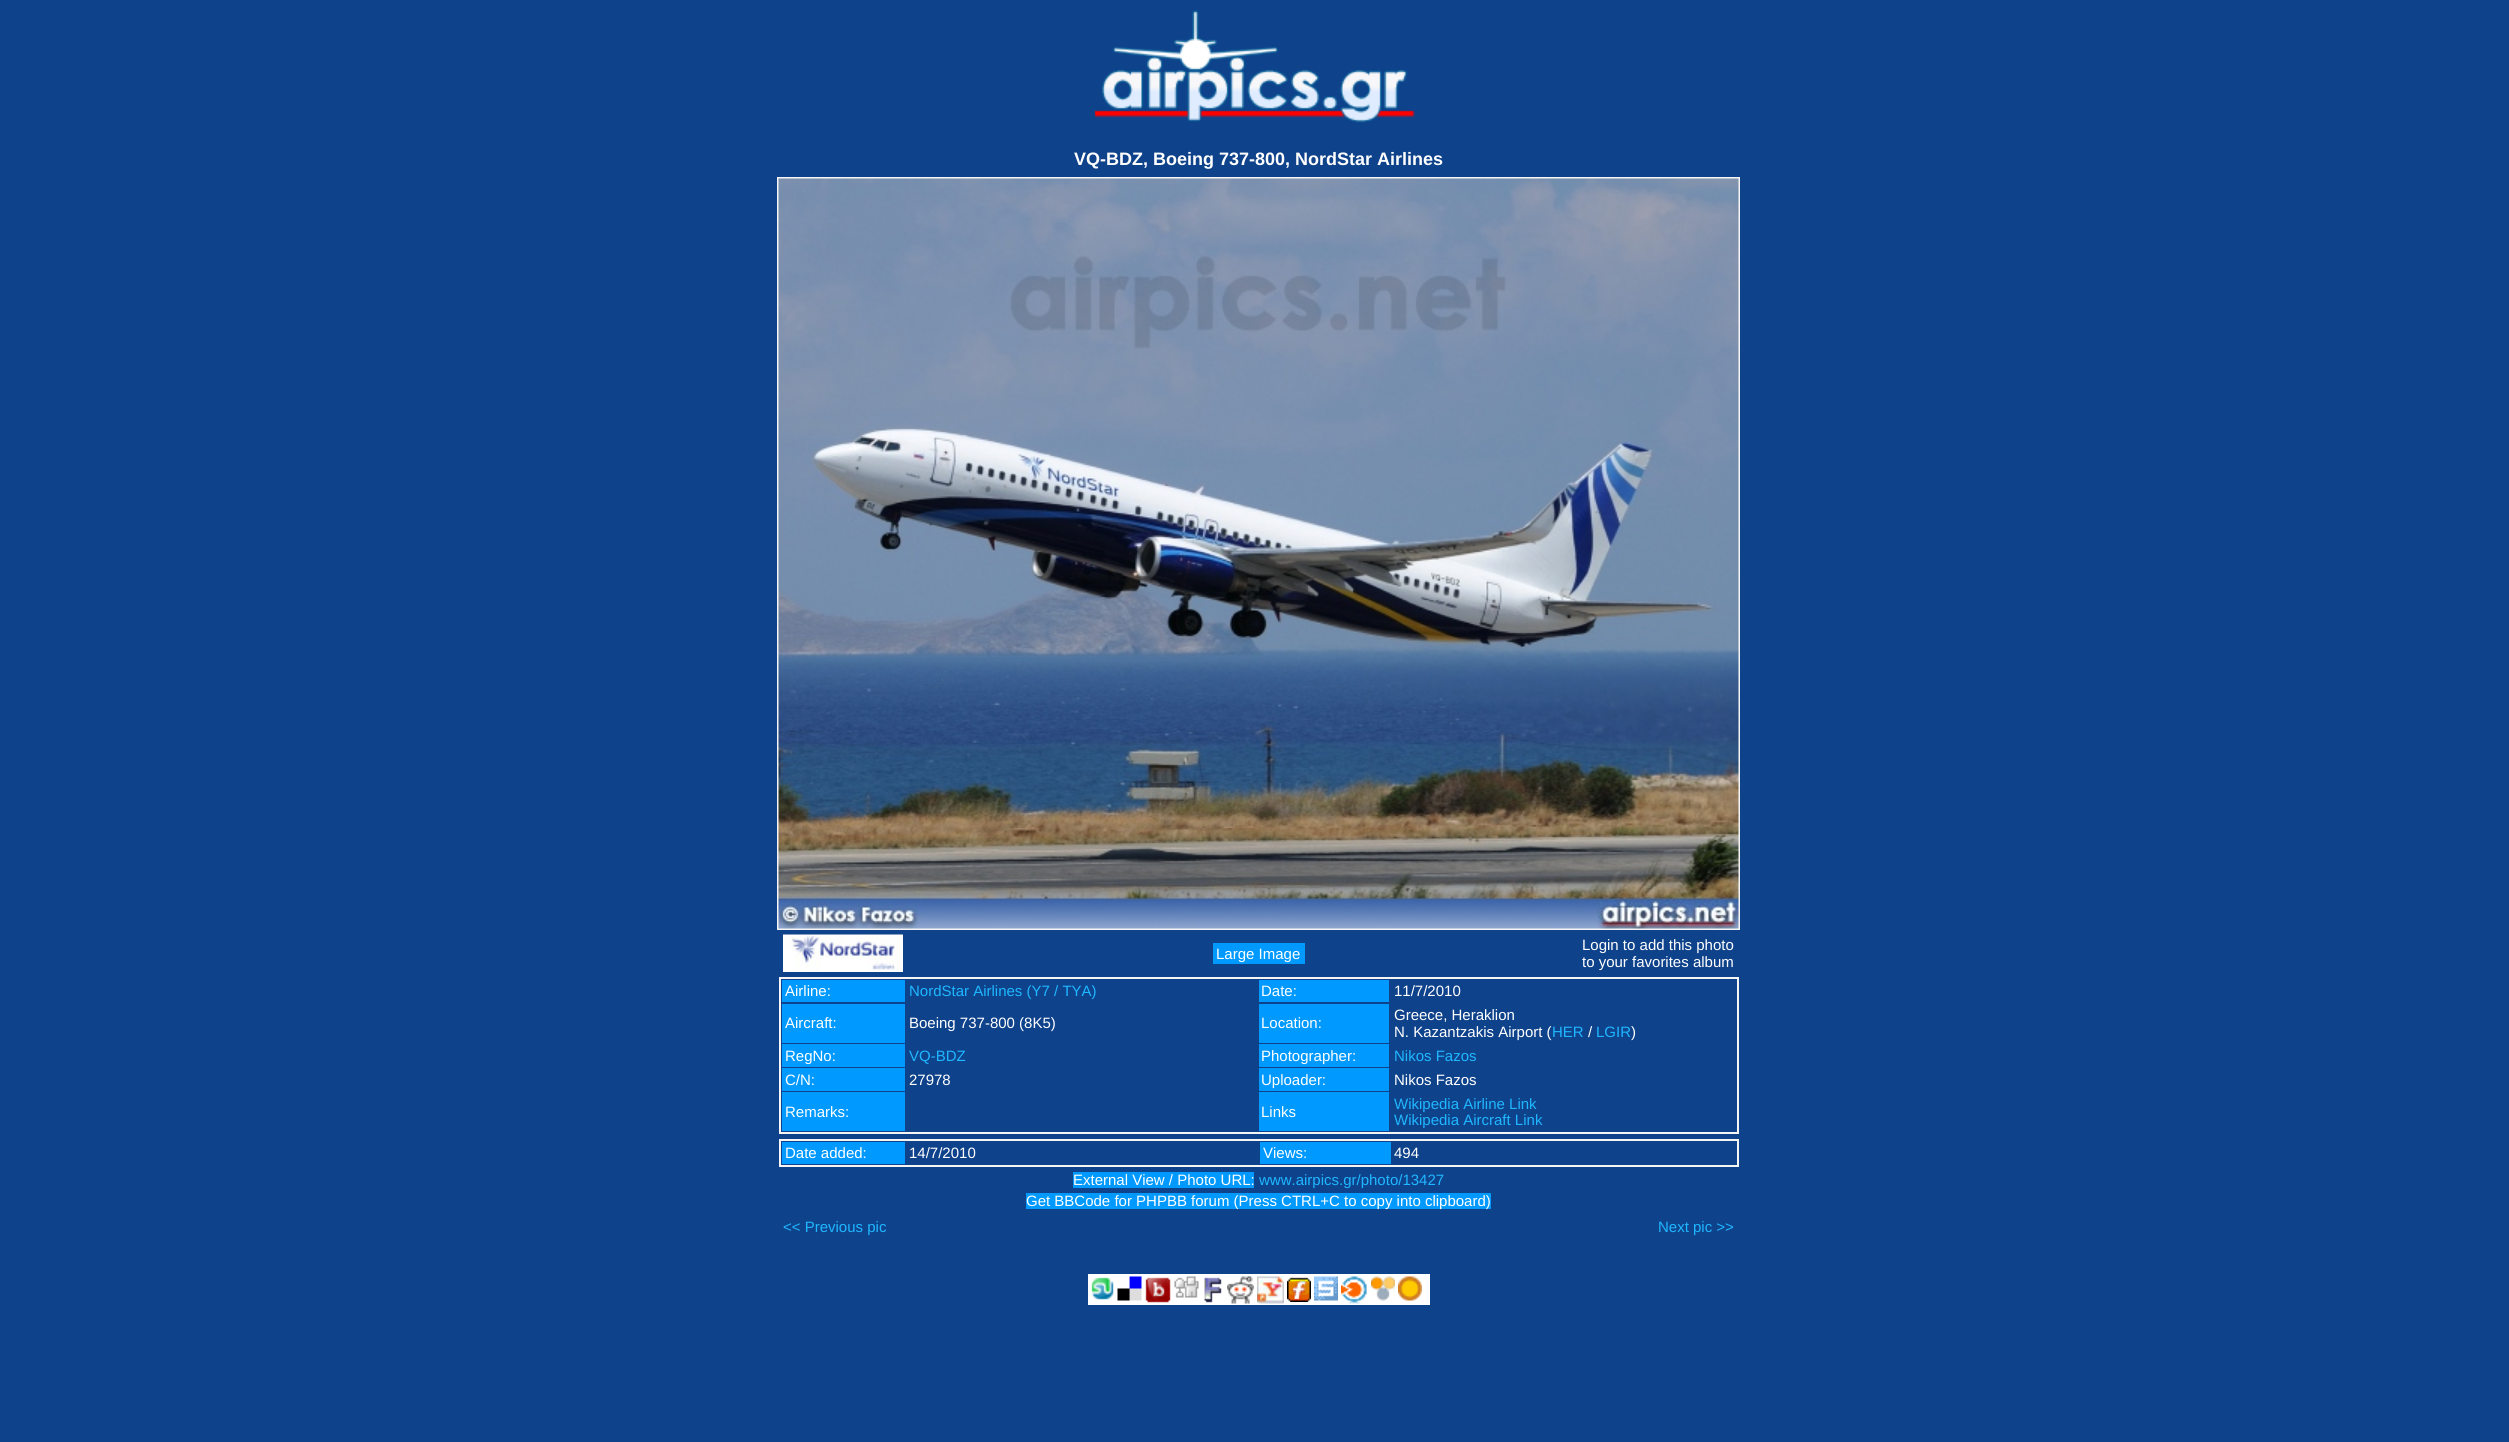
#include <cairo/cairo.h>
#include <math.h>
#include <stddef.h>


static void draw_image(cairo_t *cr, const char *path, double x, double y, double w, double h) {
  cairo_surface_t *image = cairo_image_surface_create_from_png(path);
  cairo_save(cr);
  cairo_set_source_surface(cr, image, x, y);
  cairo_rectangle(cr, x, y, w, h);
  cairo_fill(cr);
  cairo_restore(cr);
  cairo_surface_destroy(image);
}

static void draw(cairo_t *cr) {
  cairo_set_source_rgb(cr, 14 / 255.0, 66 / 255.0, 139 / 255.0);
  cairo_paint(cr);
  draw_image(cr, "images/1.png", 1094, 10, 321, 113);
  cairo_rectangle(cr, 778, 178, 961, 751);
  cairo_set_source_rgb(cr, 245 / 255.0, 245 / 255.0, 245 / 255.0);
  cairo_stroke(cr);
  draw_image(cr, "images/2.png", 778, 178, 961, 751);
  draw_image(cr, "images/3.png", 783, 934, 120, 38);
  cairo_set_source_rgb(cr, 0, 153 / 255.0, 1);
  cairo_rectangle(cr, 1213, 943, 92, 21);
  cairo_fill(cr);
  cairo_rectangle(cr, 780, 978, 958, 155);
  cairo_set_source_rgb(cr, 245 / 255.0, 245 / 255.0, 245 / 255.0);
  cairo_stroke(cr);
  cairo_set_source_rgb(cr, 0, 153 / 255.0, 1);
  cairo_rectangle(cr, 782, 980, 123, 22);
  cairo_fill(cr);
  cairo_rectangle(cr, 1259, 980, 130, 22);
  cairo_fill(cr);
  cairo_rectangle(cr, 782, 1004, 123, 39);
  cairo_fill(cr);
  cairo_rectangle(cr, 1259, 1004, 130, 39);
  cairo_fill(cr);
  cairo_rectangle(cr, 782, 1044, 123, 23);
  cairo_fill(cr);
  cairo_rectangle(cr, 1259, 1044, 130, 23);
  cairo_fill(cr);
  cairo_rectangle(cr, 782, 1068, 123, 23);
  cairo_fill(cr);
  cairo_rectangle(cr, 1259, 1068, 130, 23);
  cairo_fill(cr);
  cairo_rectangle(cr, 782, 1092, 123, 39);
  cairo_fill(cr);
  cairo_rectangle(cr, 1259, 1092, 130, 39);
  cairo_fill(cr);
  cairo_rectangle(cr, 780, 1140, 958, 26);
  cairo_set_source_rgb(cr, 245 / 255.0, 245 / 255.0, 245 / 255.0);
  cairo_stroke(cr);
  cairo_set_source_rgb(cr, 0, 153 / 255.0, 1);
  cairo_rectangle(cr, 782, 1142, 123, 22);
  cairo_fill(cr);
  cairo_rectangle(cr, 1260, 1142, 131, 22);
  cairo_fill(cr);
  cairo_rectangle(cr, 1073, 1172, 181, 16);
  cairo_fill(cr);
  cairo_rectangle(cr, 1026, 1193, 465, 16);
  cairo_fill(cr);
  cairo_set_source_rgb(cr, 1, 1, 1);
  cairo_rectangle(cr, 1088, 1274, 342, 31);
  cairo_fill(cr);
  draw_image(cr, "images/4.png", 1091, 1277, 23, 23);
  draw_image(cr, "images/5.png", 1117, 1276, 25, 25);
  draw_image(cr, "images/6.png", 1145, 1277, 26, 26);
  draw_image(cr, "images/7.png", 1174, 1276, 25, 22);
  draw_image(cr, "images/8.png", 1204, 1277, 18, 26);
  draw_image(cr, "images/9.png", 1227, 1276, 27, 28);
  draw_image(cr, "images/10.png", 1257, 1276, 27, 28);
  draw_image(cr, "images/11.png", 1287, 1277, 24, 25);
  draw_image(cr, "images/12.png", 1314, 1276, 24, 25);
  draw_image(cr, "images/13.png", 1341, 1276, 26, 28);
  draw_image(cr, "images/14.png", 1371, 1276, 24, 25);
  draw_image(cr, "images/15.png", 1398, 1276, 24, 25);
  cairo_select_font_face(cr, "Liberation Sans", CAIRO_FONT_SLANT_NORMAL, CAIRO_FONT_WEIGHT_BOLD);
  cairo_set_font_size(cr, 18);
  cairo_move_to(cr, 1074, 165);
  cairo_show_text(cr, "VQ-BDZ, Boeing 737-800, NordStar Airlines");
  cairo_select_font_face(cr, "Liberation Sans", CAIRO_FONT_SLANT_NORMAL, CAIRO_FONT_WEIGHT_NORMAL);
  cairo_set_font_size(cr, 15);
  cairo_move_to(cr, 1216, 959);
  cairo_show_text(cr, "Large Image");
  cairo_move_to(cr, 1582, 950);
  cairo_show_text(cr, "Login to add this photo");
  cairo_move_to(cr, 1582, 967);
  cairo_show_text(cr, "to your favorites album");
  cairo_move_to(cr, 785, 996);
  cairo_show_text(cr, "Airline:");
  cairo_set_source_rgb(cr, 31 / 255.0, 183 / 255.0, 1);
  cairo_move_to(cr, 909, 996);
  cairo_show_text(cr, "NordStar Airlines (Y7 / TYA)");
  cairo_set_source_rgb(cr, 1, 1, 1);
  cairo_move_to(cr, 1261, 996);
  cairo_show_text(cr, "Date:");
  cairo_move_to(cr, 1394, 996);
  cairo_show_text(cr, "11/7/2010");
  cairo_move_to(cr, 785, 1028);
  cairo_show_text(cr, "Aircraft:");
  cairo_move_to(cr, 909, 1028);
  cairo_show_text(cr, "Boeing 737-800 (8K5)");
  cairo_move_to(cr, 1261, 1028);
  cairo_show_text(cr, "Location:");
  cairo_move_to(cr, 1394, 1020);
  cairo_show_text(cr, "Greece, Heraklion");
  cairo_move_to(cr, 1394, 1037);
  cairo_show_text(cr, "N. Kazantzakis Airport (");
  cairo_set_source_rgb(cr, 31 / 255.0, 183 / 255.0, 1);
  cairo_move_to(cr, 1552, 1037);
  cairo_show_text(cr, "HER");
  cairo_set_source_rgb(cr, 1, 1, 1);
  cairo_move_to(cr, 1588, 1037);
  cairo_show_text(cr, "/");
  cairo_set_source_rgb(cr, 31 / 255.0, 183 / 255.0, 1);
  cairo_move_to(cr, 1596, 1037);
  cairo_show_text(cr, "LGIR");
  cairo_set_source_rgb(cr, 1, 1, 1);
  cairo_move_to(cr, 1631, 1037);
  cairo_show_text(cr, ")");
  cairo_move_to(cr, 785, 1061);
  cairo_show_text(cr, "RegNo:");
  cairo_set_source_rgb(cr, 31 / 255.0, 183 / 255.0, 1);
  cairo_move_to(cr, 909, 1061);
  cairo_show_text(cr, "VQ-BDZ");
  cairo_set_source_rgb(cr, 1, 1, 1);
  cairo_move_to(cr, 1261, 1061);
  cairo_show_text(cr, "Photographer:");
  cairo_set_source_rgb(cr, 31 / 255.0, 183 / 255.0, 1);
  cairo_move_to(cr, 1394, 1061);
  cairo_show_text(cr, "Nikos Fazos");
  cairo_set_source_rgb(cr, 1, 1, 1);
  cairo_move_to(cr, 785, 1085);
  cairo_show_text(cr, "C/N:");
  cairo_move_to(cr, 909, 1085);
  cairo_show_text(cr, "27978");
  cairo_move_to(cr, 1261, 1085);
  cairo_show_text(cr, "Uploader:");
  cairo_move_to(cr, 1394, 1085);
  cairo_show_text(cr, "Nikos Fazos");
  cairo_move_to(cr, 785, 1117);
  cairo_show_text(cr, "Remarks:");
  cairo_move_to(cr, 1261, 1117);
  cairo_show_text(cr, "Links");
  cairo_set_source_rgb(cr, 31 / 255.0, 183 / 255.0, 1);
  cairo_move_to(cr, 1394, 1109);
  cairo_show_text(cr, "Wikipedia Airline Link");
  cairo_move_to(cr, 1394, 1125);
  cairo_show_text(cr, "Wikipedia Aircraft Link");
  cairo_set_source_rgb(cr, 1, 1, 1);
  cairo_move_to(cr, 785, 1158);
  cairo_show_text(cr, "Date added:");
  cairo_move_to(cr, 909, 1158);
  cairo_show_text(cr, "14/7/2010");
  cairo_move_to(cr, 1263, 1158);
  cairo_show_text(cr, "Views:");
  cairo_move_to(cr, 1394, 1158);
  cairo_show_text(cr, "494");
  cairo_move_to(cr, 1073, 1185);
  cairo_show_text(cr, "External View / Photo URL:");
  cairo_set_source_rgb(cr, 31 / 255.0, 183 / 255.0, 1);
  cairo_move_to(cr, 1259, 1185);
  cairo_show_text(cr, "www.airpics.gr/photo/13427");
  cairo_set_source_rgb(cr, 1, 1, 1);
  cairo_move_to(cr, 1026, 1206);
  cairo_show_text(cr, "Get BBCode for PHPBB forum (Press CTRL+C to copy into clipboard)");
  cairo_set_source_rgb(cr, 31 / 255.0, 183 / 255.0, 1);
  cairo_move_to(cr, 783, 1232);
  cairo_show_text(cr, "<< Previous pic");
  cairo_move_to(cr, 1658, 1232);
  cairo_show_text(cr, "Next pic >>");
}

int main(void) {
  cairo_surface_t *surface = cairo_image_surface_create(CAIRO_FORMAT_RGB24, 2509, 1442);
  cairo_t *cr = cairo_create(surface);
  cairo_font_options_t *options = cairo_font_options_create();
  cairo_font_options_set_hint_metrics(options, CAIRO_HINT_METRICS_OFF);
  cairo_font_options_set_hint_style(options, CAIRO_HINT_STYLE_NONE);
  cairo_set_font_options(cr, options);
  cairo_set_miter_limit(cr, 4);
  draw(cr);
  cairo_surface_write_to_png(surface, "out.png");
  cairo_font_options_destroy(options);
  cairo_destroy(cr);
  cairo_surface_destroy(surface);
  return 0;
}
